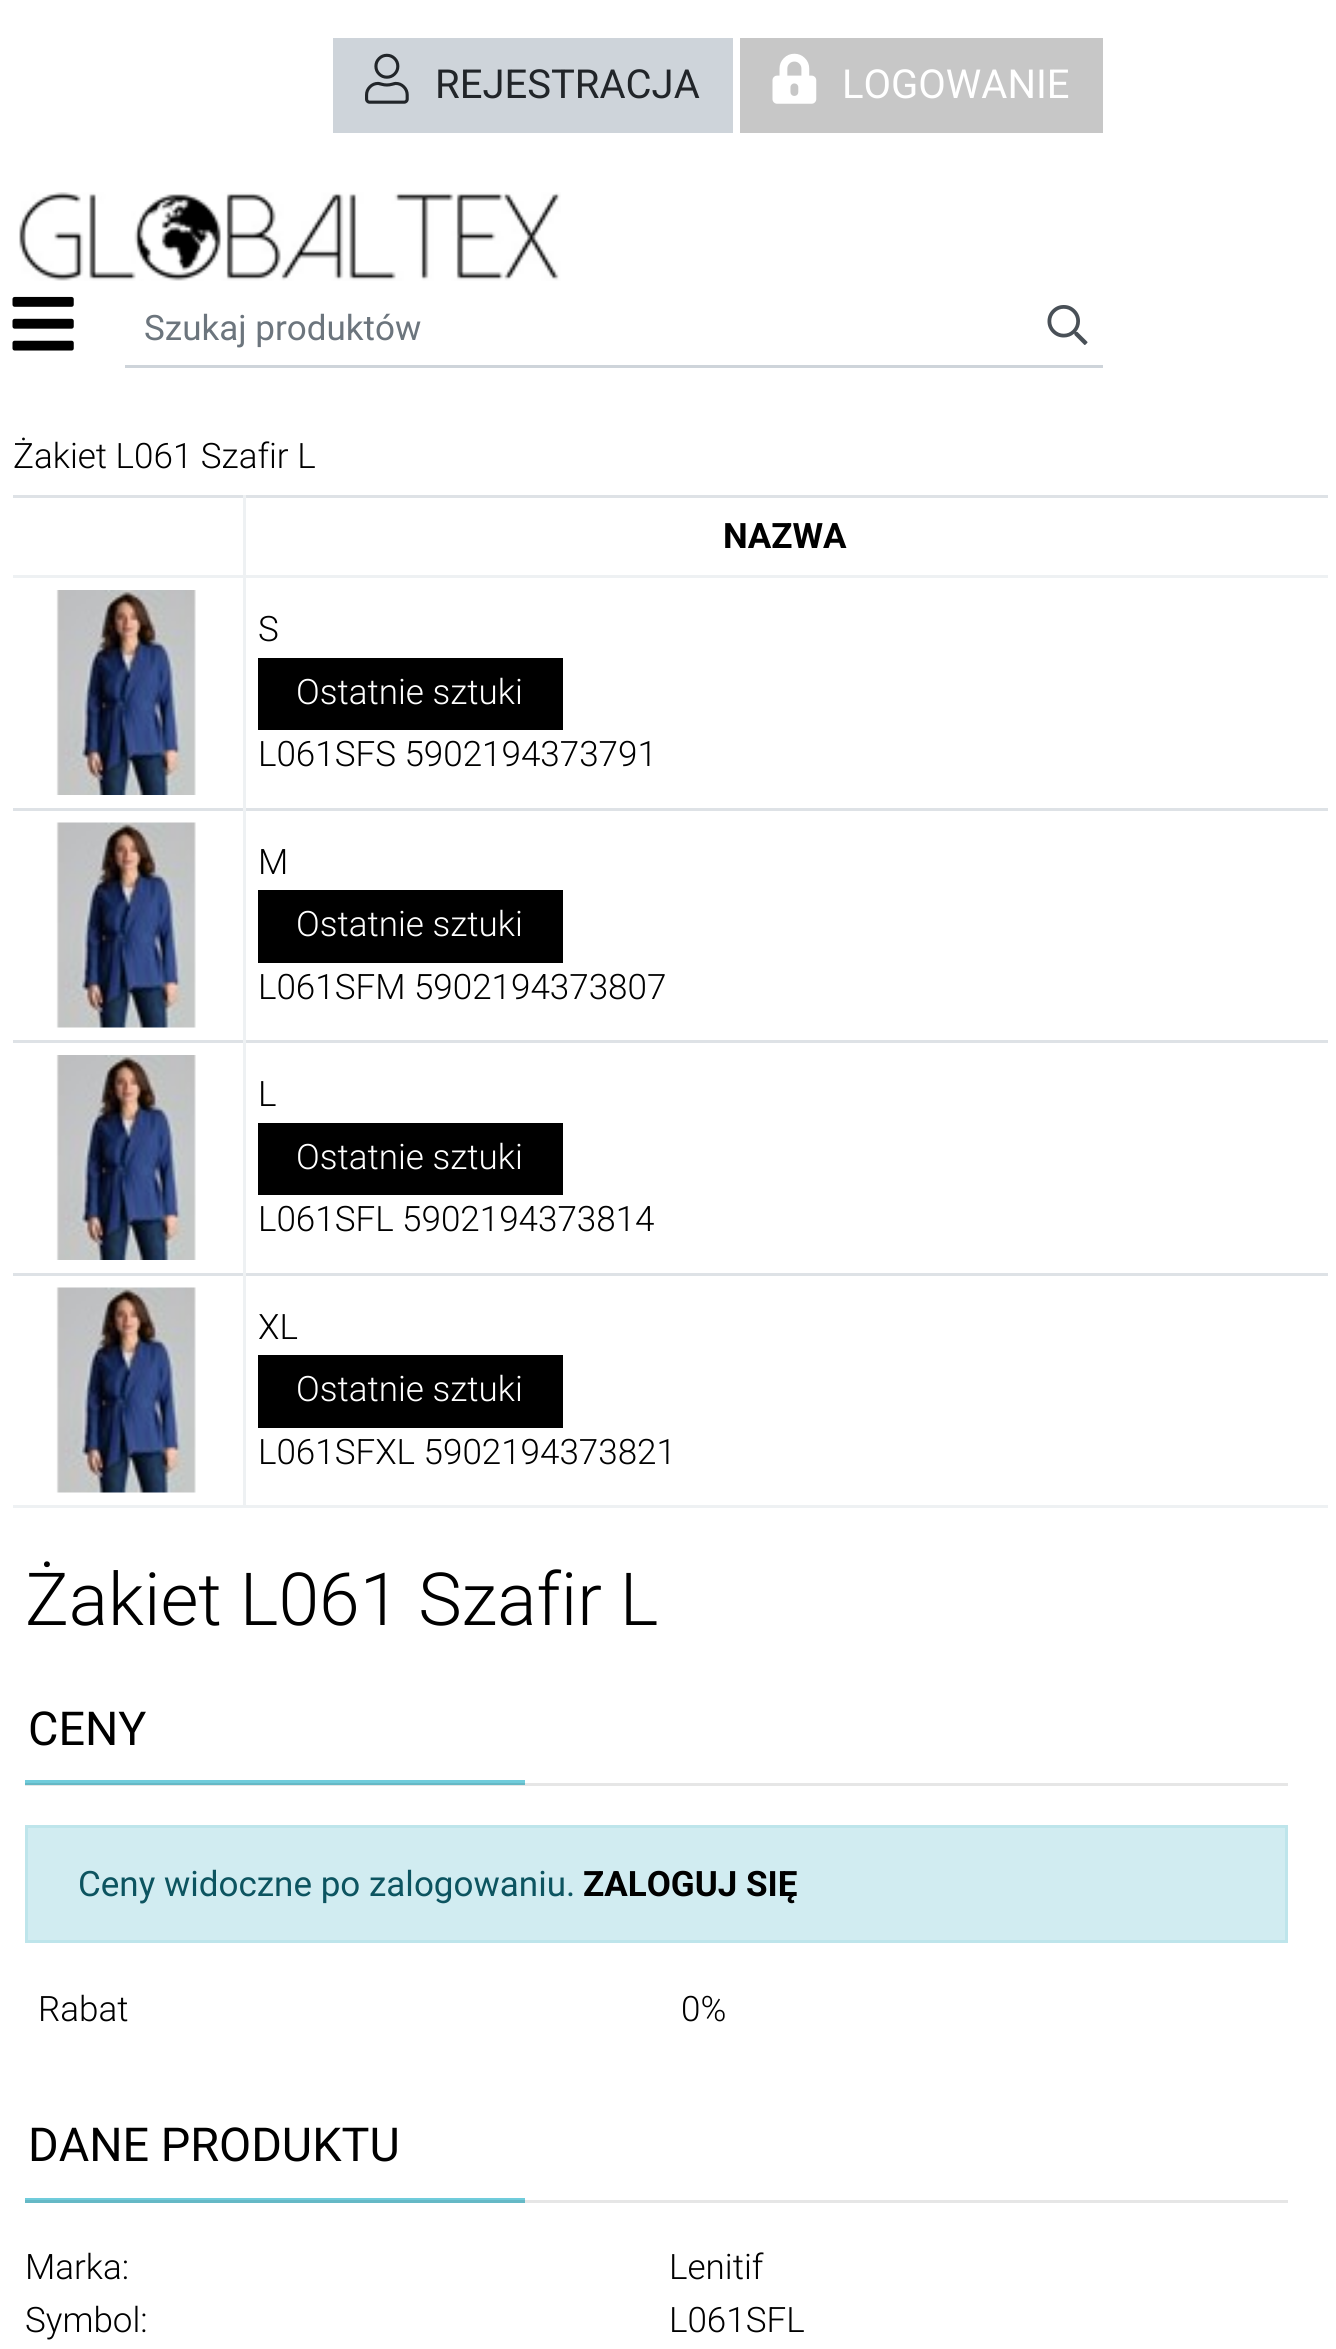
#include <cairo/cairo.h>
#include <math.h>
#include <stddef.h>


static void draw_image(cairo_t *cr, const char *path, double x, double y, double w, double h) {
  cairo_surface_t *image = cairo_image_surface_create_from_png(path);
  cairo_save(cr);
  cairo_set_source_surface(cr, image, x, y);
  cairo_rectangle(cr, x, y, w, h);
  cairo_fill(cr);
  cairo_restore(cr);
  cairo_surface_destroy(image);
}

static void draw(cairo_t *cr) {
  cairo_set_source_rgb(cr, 1, 1, 1);
  cairo_paint(cr);
  cairo_set_source_rgb(cr, 230 / 255.0, 230 / 255.0, 230 / 255.0);
  cairo_rectangle(cr, 525, 2200, 763, 3);
  cairo_fill(cr);
  cairo_rectangle(cr, 25, 1783, 1263, 3);
  cairo_fill(cr);
  cairo_set_source_rgb(cr, 206 / 255.0, 212 / 255.0, 218 / 255.0);
  cairo_rectangle(cr, 333, 38, 400, 95);
  cairo_fill(cr);
  draw_image(cr, "images/1.png", 365, 53, 44, 51);
  cairo_set_source_rgb(cr, 199 / 255.0, 199 / 255.0, 199 / 255.0);
  cairo_rectangle(cr, 740, 38, 363, 95);
  cairo_fill(cr);
  draw_image(cr, "images/2.png", 772, 53, 45, 51);
  draw_image(cr, "images/3.png", 19, 192, 542, 89);
  draw_image(cr, "images/4.png", 12, 296, 62, 55);
  cairo_set_source_rgb(cr, 206 / 255.0, 212 / 255.0, 218 / 255.0);
  cairo_rectangle(cr, 125, 365, 978, 3);
  cairo_fill(cr);
  draw_image(cr, "images/5.png", 1047, 305, 41, 40);
  cairo_set_source_rgb(cr, 222 / 255.0, 226 / 255.0, 230 / 255.0);
  cairo_rectangle(cr, 13, 495, 1315, 3);
  cairo_fill(cr);
  cairo_rectangle(cr, 13, 808, 1315, 3);
  cairo_fill(cr);
  cairo_rectangle(cr, 13, 1040, 1315, 3);
  cairo_fill(cr);
  cairo_set_source_rgb(cr, 238 / 255.0, 241 / 255.0, 243 / 255.0);
  cairo_rectangle(cr, 13, 1505, 1315, 3);
  cairo_fill(cr);
  cairo_set_source_rgb(cr, 222 / 255.0, 226 / 255.0, 230 / 255.0);
  cairo_rectangle(cr, 13, 1273, 1315, 3);
  cairo_fill(cr);
  cairo_set_source_rgb(cr, 238 / 255.0, 241 / 255.0, 243 / 255.0);
  cairo_rectangle(cr, 243, 1273, 3, 235);
  cairo_fill(cr);
  cairo_rectangle(cr, 243, 1040, 3, 235);
  cairo_fill(cr);
  cairo_rectangle(cr, 243, 575, 3, 468);
  cairo_fill(cr);
  cairo_rectangle(cr, 243, 575, 1085, 3);
  cairo_fill(cr);
  cairo_rectangle(cr, 243, 495, 3, 83);
  cairo_fill(cr);
  cairo_rectangle(cr, 13, 575, 232, 3);
  cairo_fill(cr);
  draw_image(cr, "images/6.png", 56, 590, 140, 205);
  cairo_set_source_rgb(cr, 0, 0, 0);
  cairo_rectangle(cr, 258, 658, 305, 72);
  cairo_fill(cr);
  draw_image(cr, "images/7.png", 56, 822, 140, 206);
  cairo_rectangle(cr, 258, 890, 305, 73);
  cairo_fill(cr);
  draw_image(cr, "images/6.png", 56, 1055, 140, 205);
  cairo_rectangle(cr, 258, 1123, 305, 72);
  cairo_fill(cr);
  draw_image(cr, "images/7.png", 56, 1287, 140, 206);
  cairo_rectangle(cr, 258, 1355, 305, 73);
  cairo_fill(cr);
  cairo_set_source_rgb(cr, 112 / 255.0, 204 / 255.0, 219 / 255.0);
  cairo_rectangle(cr, 25, 1780, 500, 3);
  cairo_fill(cr);
  cairo_set_source_rgb(cr, 101 / 255.0, 184 / 255.0, 197 / 255.0);
  cairo_rectangle(cr, 25, 1783, 500, 2);
  cairo_fill(cr);
  cairo_set_source_rgb(cr, 209 / 255.0, 236 / 255.0, 241 / 255.0);
  cairo_rectangle(cr, 26.5, 1826.5, 1260, 115);
  cairo_fill_preserve(cr);
  cairo_set_source_rgb(cr, 190 / 255.0, 229 / 255.0, 235 / 255.0);
  cairo_set_line_width(cr, 3);
  cairo_stroke(cr);
  cairo_set_source_rgb(cr, 112 / 255.0, 204 / 255.0, 219 / 255.0);
  cairo_rectangle(cr, 25, 2198, 500, 2);
  cairo_fill(cr);
  cairo_set_source_rgb(cr, 101 / 255.0, 184 / 255.0, 197 / 255.0);
  cairo_rectangle(cr, 25, 2200, 500, 3);
  cairo_fill(cr);
  cairo_select_font_face(cr, "Roboto", CAIRO_FONT_SLANT_NORMAL, CAIRO_FONT_WEIGHT_NORMAL);
  cairo_set_font_size(cr, 40);
  cairo_set_source_rgb(cr, 33 / 255.0, 37 / 255.0, 41 / 255.0);
  cairo_move_to(cr, 435, 98);
  cairo_show_text(cr, "REJESTRACJA");
  cairo_set_source_rgb(cr, 1, 1, 1);
  cairo_move_to(cr, 842, 98);
  cairo_show_text(cr, "LOGOWANIE");
  cairo_set_font_size(cr, 35);
  cairo_set_source_rgb(cr, 108 / 255.0, 117 / 255.0, 125 / 255.0);
  cairo_move_to(cr, 144, 340);
  cairo_show_text(cr, "Szukaj produktów");
  cairo_select_font_face(cr, "Roboto Light", CAIRO_FONT_SLANT_NORMAL, CAIRO_FONT_WEIGHT_NORMAL);
  cairo_set_source_rgb(cr, 0, 0, 0);
  cairo_move_to(cr, 13, 468);
  cairo_show_text(cr, "Żakiet L061 Szafir L");
  cairo_select_font_face(cr, "Roboto", CAIRO_FONT_SLANT_NORMAL, CAIRO_FONT_WEIGHT_BOLD);
  cairo_move_to(cr, 723, 548);
  cairo_show_text(cr, "NAZWA");
  cairo_select_font_face(cr, "Roboto Light", CAIRO_FONT_SLANT_NORMAL, CAIRO_FONT_WEIGHT_NORMAL);
  cairo_move_to(cr, 258, 641);
  cairo_show_text(cr, "S");
  cairo_set_source_rgb(cr, 1, 1, 1);
  cairo_move_to(cr, 296, 704);
  cairo_show_text(cr, "Ostatnie sztuki");
  cairo_set_source_rgb(cr, 0, 0, 0);
  cairo_move_to(cr, 258, 766);
  cairo_show_text(cr, "L061SFS 5902194373791");
  cairo_move_to(cr, 258, 874);
  cairo_show_text(cr, "M");
  cairo_set_source_rgb(cr, 1, 1, 1);
  cairo_move_to(cr, 296, 936);
  cairo_show_text(cr, "Ostatnie sztuki");
  cairo_set_source_rgb(cr, 0, 0, 0);
  cairo_move_to(cr, 258, 999);
  cairo_show_text(cr, "L061SFM 5902194373807");
  cairo_move_to(cr, 258, 1106);
  cairo_show_text(cr, "L");
  cairo_set_source_rgb(cr, 1, 1, 1);
  cairo_move_to(cr, 296, 1169);
  cairo_show_text(cr, "Ostatnie sztuki");
  cairo_set_source_rgb(cr, 0, 0, 0);
  cairo_move_to(cr, 258, 1231);
  cairo_show_text(cr, "L061SFL 5902194373814");
  cairo_move_to(cr, 258, 1339);
  cairo_show_text(cr, "XL");
  cairo_set_source_rgb(cr, 1, 1, 1);
  cairo_move_to(cr, 296, 1401);
  cairo_show_text(cr, "Ostatnie sztuki");
  cairo_set_source_rgb(cr, 0, 0, 0);
  cairo_move_to(cr, 258, 1464);
  cairo_show_text(cr, "L061SFXL 5902194373821");
  cairo_set_font_size(cr, 73.25);
  cairo_move_to(cr, 25, 1625);
  cairo_show_text(cr, "Żakiet L061 Szafir L");
  cairo_select_font_face(cr, "Roboto", CAIRO_FONT_SLANT_NORMAL, CAIRO_FONT_WEIGHT_NORMAL);
  cairo_set_font_size(cr, 46.75);
  cairo_move_to(cr, 28, 1745);
  cairo_show_text(cr, "CENY");
  cairo_set_font_size(cr, 35);
  cairo_set_source_rgb(cr, 12 / 255.0, 84 / 255.0, 96 / 255.0);
  cairo_move_to(cr, 78, 1896);
  cairo_show_text(cr, "Ceny widoczne po zalogowaniu.");
  cairo_select_font_face(cr, "Roboto", CAIRO_FONT_SLANT_NORMAL, CAIRO_FONT_WEIGHT_BOLD);
  cairo_set_source_rgb(cr, 0, 0, 0);
  cairo_move_to(cr, 583, 1896);
  cairo_show_text(cr, "ZALOGUJ SIĘ");
  cairo_select_font_face(cr, "Roboto Light", CAIRO_FONT_SLANT_NORMAL, CAIRO_FONT_WEIGHT_NORMAL);
  cairo_move_to(cr, 38, 2021);
  cairo_show_text(cr, "Rabat");
  cairo_move_to(cr, 681, 2021);
  cairo_show_text(cr, "0%");
  cairo_select_font_face(cr, "Roboto", CAIRO_FONT_SLANT_NORMAL, CAIRO_FONT_WEIGHT_NORMAL);
  cairo_set_font_size(cr, 46.75);
  cairo_move_to(cr, 28, 2161);
  cairo_show_text(cr, "DANE PRODUKTU");
  cairo_select_font_face(cr, "Roboto Light", CAIRO_FONT_SLANT_NORMAL, CAIRO_FONT_WEIGHT_NORMAL);
  cairo_set_font_size(cr, 35);
  cairo_move_to(cr, 25, 2279);
  cairo_show_text(cr, "Marka:");
  cairo_move_to(cr, 669, 2279);
  cairo_show_text(cr, "Lenitif");
  cairo_move_to(cr, 25, 2332);
  cairo_show_text(cr, "Symbol:");
  cairo_move_to(cr, 669, 2332);
  cairo_show_text(cr, "L061SFL");
}

int main(void) {
  cairo_surface_t *surface = cairo_image_surface_create(CAIRO_FORMAT_RGB24, 1336, 2349);
  cairo_t *cr = cairo_create(surface);
  cairo_font_options_t *options = cairo_font_options_create();
  cairo_font_options_set_hint_metrics(options, CAIRO_HINT_METRICS_OFF);
  cairo_font_options_set_hint_style(options, CAIRO_HINT_STYLE_NONE);
  cairo_set_font_options(cr, options);
  cairo_set_miter_limit(cr, 4);
  draw(cr);
  cairo_surface_write_to_png(surface, "out.png");
  cairo_font_options_destroy(options);
  cairo_destroy(cr);
  cairo_surface_destroy(surface);
  return 0;
}
